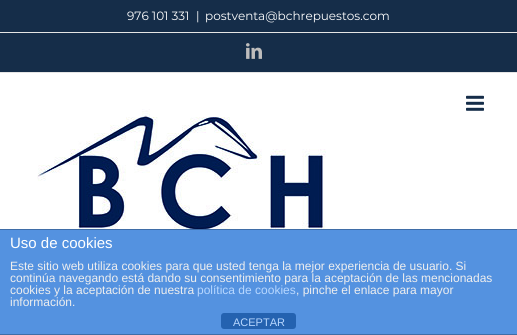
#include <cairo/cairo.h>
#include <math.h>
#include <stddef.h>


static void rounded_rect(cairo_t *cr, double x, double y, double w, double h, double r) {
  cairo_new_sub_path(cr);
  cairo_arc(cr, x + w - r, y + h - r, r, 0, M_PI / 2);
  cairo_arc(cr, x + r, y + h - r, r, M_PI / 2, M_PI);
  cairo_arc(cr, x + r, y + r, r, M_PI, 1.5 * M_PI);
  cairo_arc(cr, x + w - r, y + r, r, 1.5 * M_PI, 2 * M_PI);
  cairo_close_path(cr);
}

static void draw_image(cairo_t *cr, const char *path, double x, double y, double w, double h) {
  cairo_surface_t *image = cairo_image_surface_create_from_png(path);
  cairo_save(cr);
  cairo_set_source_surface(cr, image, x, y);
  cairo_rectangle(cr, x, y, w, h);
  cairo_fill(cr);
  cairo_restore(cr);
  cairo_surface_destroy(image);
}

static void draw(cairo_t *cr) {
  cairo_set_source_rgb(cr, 21 / 255.0, 45 / 255.0, 73 / 255.0);
  cairo_paint(cr);
  cairo_set_source_rgb(cr, 229 / 255.0, 229 / 255.0, 229 / 255.0);
  cairo_rectangle(cr, 0, 72, 517, 1);
  cairo_fill(cr);
  cairo_rectangle(cr, 0, 32, 517, 1);
  cairo_fill(cr);
  draw_image(cr, "images/1.png", 246, 43, 16, 16);
  cairo_set_source_rgb(cr, 1, 1, 1);
  cairo_rectangle(cr, 0, 73, 517, 156);
  cairo_fill(cr);
  draw_image(cr, "images/2.png", 466, 95, 18, 16);
  draw_image(cr, "images/3.png", 37, 109, 289, 120);
  cairo_set_source_rgb(cr, 84 / 255.0, 146 / 255.0, 224 / 255.0);
  cairo_rectangle(cr, 0, 230, 517, 104);
  cairo_fill(cr);
  cairo_set_source_rgb(cr, 63 / 255.0, 109 / 255.0, 167 / 255.0);
  cairo_rectangle(cr, 0, 229, 517, 1);
  cairo_fill(cr);
  cairo_rectangle(cr, 0, 334, 517, 1);
  cairo_fill(cr);
  cairo_set_source_rgb(cr, 36 / 255.0, 98 / 255.0, 176 / 255.0);
  rounded_rect(cr, 221, 313, 75, 16, 3);
  cairo_fill(cr);
  cairo_select_font_face(cr, "Montserrat", CAIRO_FONT_SLANT_NORMAL, CAIRO_FONT_WEIGHT_NORMAL);
  cairo_set_font_size(cr, 12);
  cairo_set_source_rgb(cr, 1, 1, 1);
  cairo_move_to(cr, 127, 20);
  cairo_show_text(cr, "976 101 331");
  cairo_move_to(cr, 196, 20);
  cairo_show_text(cr, "|");
  cairo_move_to(cr, 205, 20);
  cairo_show_text(cr, "postventa@bchrepuestos.com");
  cairo_select_font_face(cr, "Liberation Sans", CAIRO_FONT_SLANT_NORMAL, CAIRO_FONT_WEIGHT_NORMAL);
  cairo_set_font_size(cr, 15);
  cairo_move_to(cr, 10, 248);
  cairo_show_text(cr, "Uso de cookies");
  cairo_set_font_size(cr, 12);
  cairo_set_source_rgb(cr, 238 / 255.0, 238 / 255.0, 238 / 255.0);
  cairo_move_to(cr, 10, 270);
  cairo_show_text(cr, "Este sitio web utiliza cookies para que usted tenga la mejor experiencia de usuario. Si");
  cairo_move_to(cr, 10, 282);
  cairo_show_text(cr, "continúa navegando está dando su consentimiento para la aceptación de las mencionadas");
  cairo_move_to(cr, 10, 294);
  cairo_show_text(cr, "cookies y la aceptación de nuestra");
  cairo_set_source_rgb(cr, 183 / 255.0, 215 / 255.0, 1);
  cairo_move_to(cr, 197, 294);
  cairo_show_text(cr, "política de cookies");
  cairo_set_source_rgb(cr, 238 / 255.0, 238 / 255.0, 238 / 255.0);
  cairo_move_to(cr, 296, 294);
  cairo_show_text(cr, ", pinche el enlace para mayor");
  cairo_move_to(cr, 10, 306);
  cairo_show_text(cr, "información.");
  cairo_set_font_size(cr, 11);
  cairo_set_source_rgb(cr, 183 / 255.0, 215 / 255.0, 1);
  cairo_move_to(cr, 233, 326);
  cairo_show_text(cr, "ACEPTAR");
}

int main(void) {
  cairo_surface_t *surface = cairo_image_surface_create(CAIRO_FORMAT_RGB24, 517, 335);
  cairo_t *cr = cairo_create(surface);
  cairo_font_options_t *options = cairo_font_options_create();
  cairo_font_options_set_hint_metrics(options, CAIRO_HINT_METRICS_OFF);
  cairo_font_options_set_hint_style(options, CAIRO_HINT_STYLE_NONE);
  cairo_set_font_options(cr, options);
  cairo_set_miter_limit(cr, 4);
  draw(cr);
  cairo_surface_write_to_png(surface, "out.png");
  cairo_font_options_destroy(options);
  cairo_destroy(cr);
  cairo_surface_destroy(surface);
  return 0;
}
